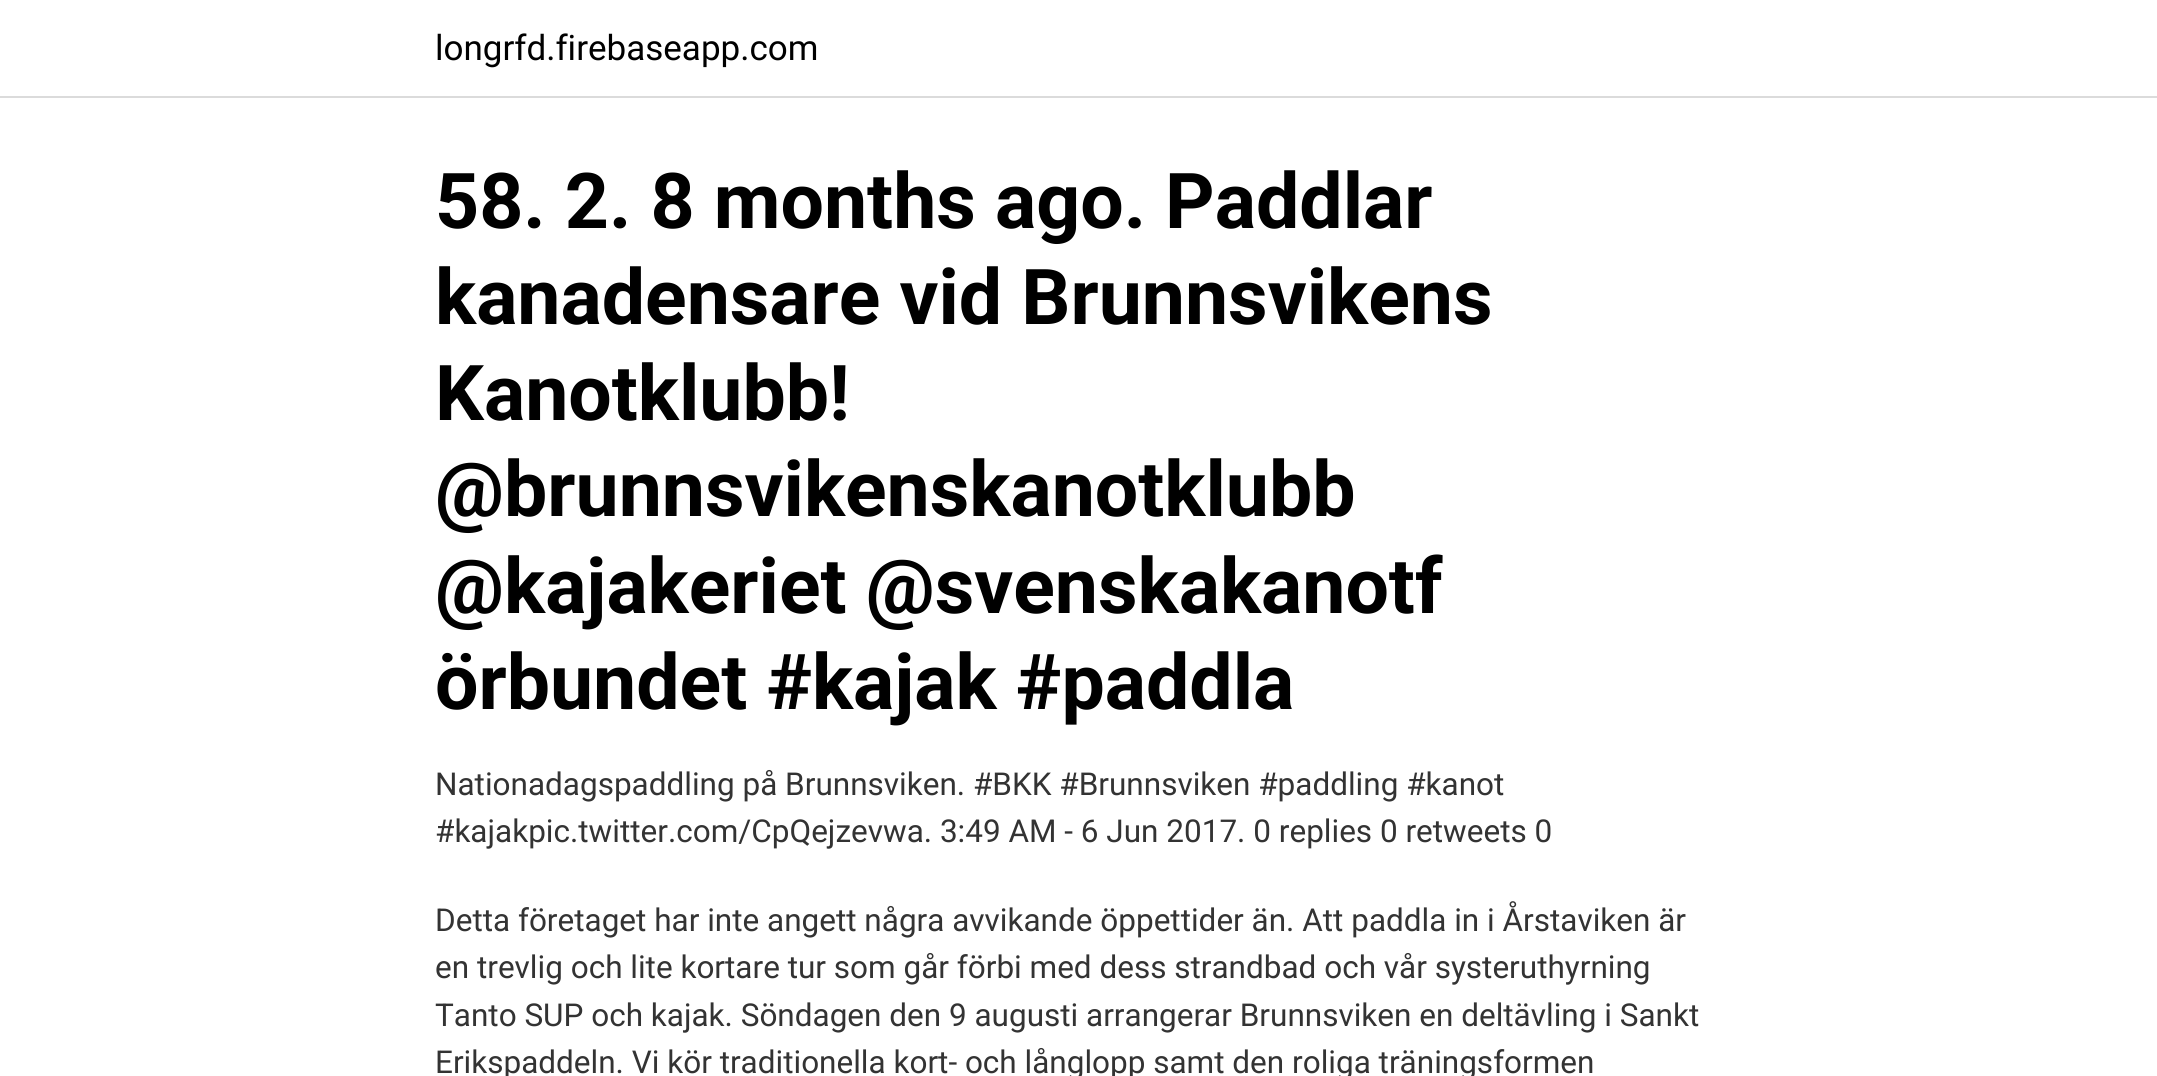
#include <cairo/cairo.h>
#include <math.h>
#include <stddef.h>


static void draw(cairo_t *cr) {
  cairo_set_source_rgb(cr, 1, 1, 1);
  cairo_paint(cr);
  cairo_set_source_rgb(cr, 219 / 255.0, 219 / 255.0, 219 / 255.0);
  cairo_rectangle(cr, 0, 96, 2157, 2);
  cairo_fill(cr);
  cairo_select_font_face(cr, "Roboto", CAIRO_FONT_SLANT_NORMAL, CAIRO_FONT_WEIGHT_NORMAL);
  cairo_set_font_size(cr, 35);
  cairo_set_source_rgb(cr, 0, 0, 0);
  cairo_move_to(cr, 435, 60);
  cairo_show_text(cr, "longrfd.firebaseapp.com");
  cairo_select_font_face(cr, "Roboto", CAIRO_FONT_SLANT_NORMAL, CAIRO_FONT_WEIGHT_BOLD);
  cairo_set_font_size(cr, 77);
  cairo_move_to(cr, 435, 228);
  cairo_show_text(cr, "58. 2. 8 months ago. Paddlar");
  cairo_move_to(cr, 435, 324);
  cairo_show_text(cr, "kanadensare vid Brunnsvikens");
  cairo_move_to(cr, 435, 420);
  cairo_show_text(cr, "Kanotklubb!");
  cairo_move_to(cr, 435, 516);
  cairo_show_text(cr, "@brunnsvikenskanotklubb");
  cairo_move_to(cr, 435, 613);
  cairo_show_text(cr, "@kajakeriet @svenskakanotf");
  cairo_move_to(cr, 435, 709);
  cairo_show_text(cr, "örbundet #kajak #paddla");
  cairo_select_font_face(cr, "Roboto", CAIRO_FONT_SLANT_NORMAL, CAIRO_FONT_WEIGHT_NORMAL);
  cairo_set_font_size(cr, 31.5);
  cairo_set_source_rgb(cr, 51 / 255.0, 51 / 255.0, 51 / 255.0);
  cairo_move_to(cr, 435, 795);
  cairo_show_text(cr, "Nationadagspaddling på Brunnsviken. #BKK #Brunnsviken #paddling #kanot");
  cairo_move_to(cr, 435, 842);
  cairo_show_text(cr, "#kajakpic.twitter.com/CpQejzevwa. 3:49 AM - 6 Jun 2017. 0 replies 0 retweets 0");
  cairo_move_to(cr, 435, 931);
  cairo_show_text(cr, "Detta företaget har inte angett några avvikande öppettider än. Att paddla in i Årstaviken är");
  cairo_move_to(cr, 435, 978);
  cairo_show_text(cr, "en trevlig och lite kortare tur som går förbi med dess strandbad och vår systeruthyrning");
  cairo_move_to(cr, 435, 1026);
  cairo_show_text(cr, "Tanto SUP och kajak. Söndagen den 9 augusti arrangerar Brunnsviken en deltävling i Sankt");
  cairo_move_to(cr, 435, 1073);
  cairo_show_text(cr, "Erikspaddeln. Vi kör traditionella kort- och långlopp samt den roliga träningsformen");
}

int main(void) {
  cairo_surface_t *surface = cairo_image_surface_create(CAIRO_FORMAT_RGB24, 2157, 1076);
  cairo_t *cr = cairo_create(surface);
  cairo_font_options_t *options = cairo_font_options_create();
  cairo_font_options_set_hint_metrics(options, CAIRO_HINT_METRICS_OFF);
  cairo_font_options_set_hint_style(options, CAIRO_HINT_STYLE_NONE);
  cairo_set_font_options(cr, options);
  cairo_set_miter_limit(cr, 4);
  draw(cr);
  cairo_surface_write_to_png(surface, "out.png");
  cairo_font_options_destroy(options);
  cairo_destroy(cr);
  cairo_surface_destroy(surface);
  return 0;
}
